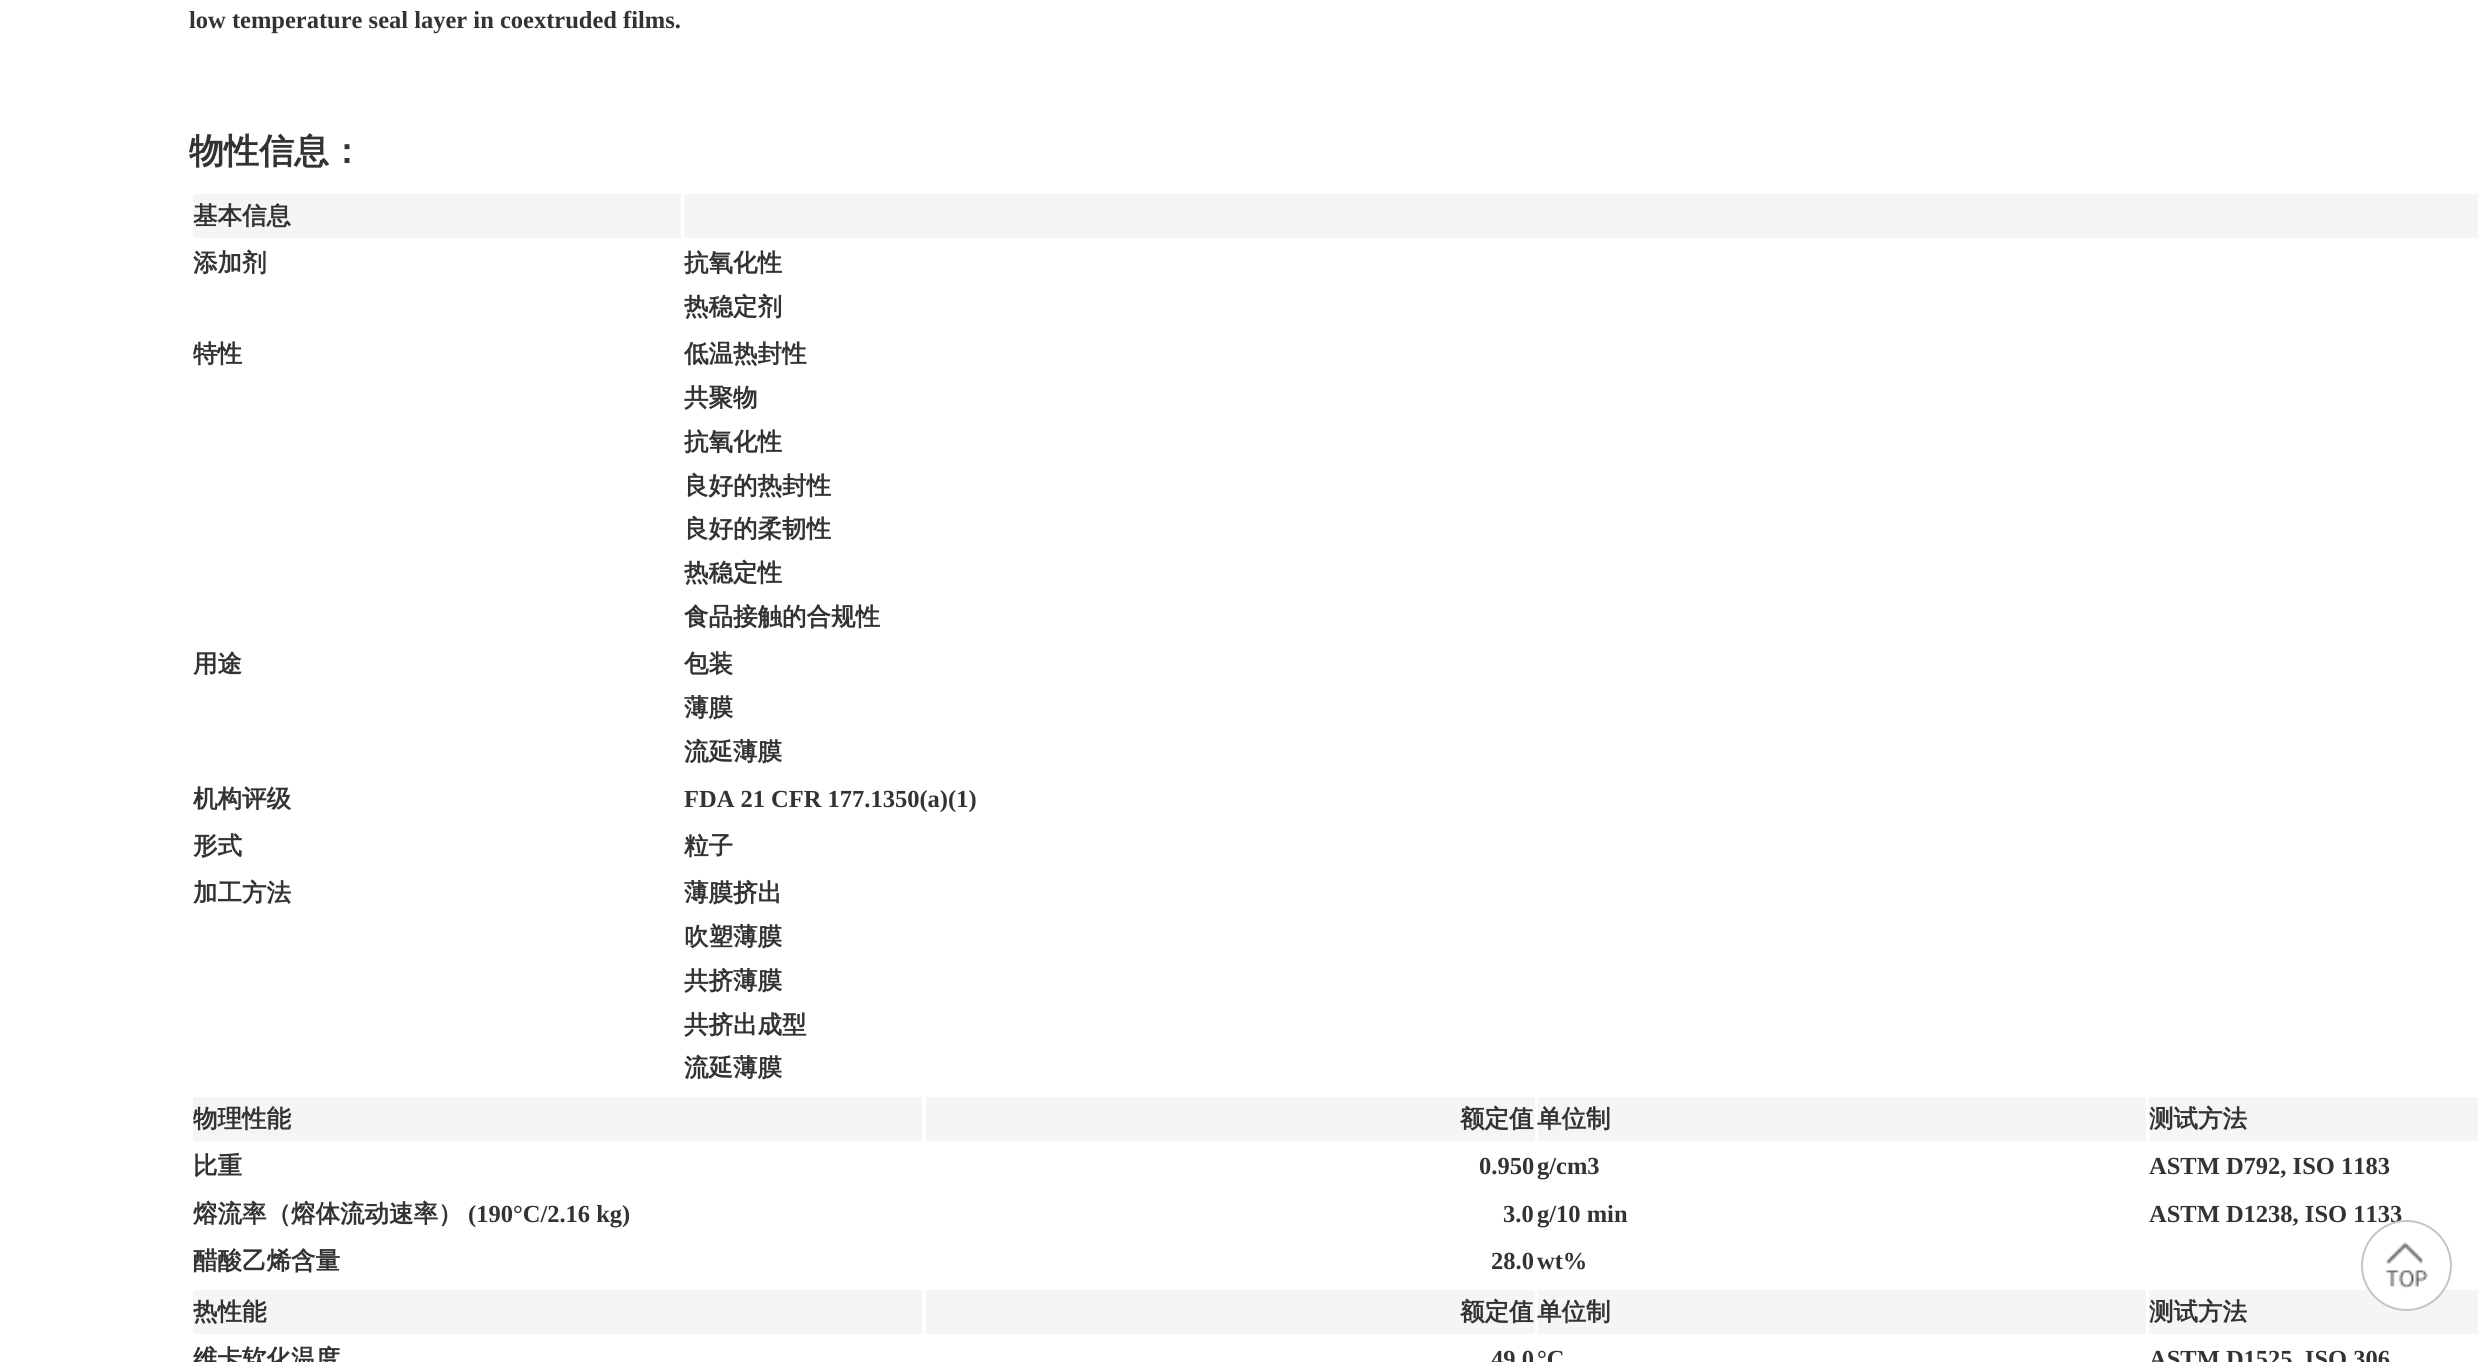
#include <cairo/cairo.h>
#include <math.h>
#include <stddef.h>


static void draw_image(cairo_t *cr, const char *path, double x, double y, double w, double h) {
  cairo_surface_t *image = cairo_image_surface_create_from_png(path);
  cairo_save(cr);
  cairo_set_source_surface(cr, image, x, y);
  cairo_rectangle(cr, x, y, w, h);
  cairo_fill(cr);
  cairo_restore(cr);
  cairo_surface_destroy(image);
}

static void draw(cairo_t *cr) {
  cairo_set_source_rgb(cr, 1, 1, 1);
  cairo_paint(cr);
  cairo_set_source_rgb(cr, 245 / 255.0, 245 / 255.0, 245 / 255.0);
  cairo_rectangle(cr, 193, 194, 488, 44);
  cairo_fill(cr);
  cairo_rectangle(cr, 684, 194, 1794, 44);
  cairo_fill(cr);
  cairo_rectangle(cr, 193, 1097, 729, 44);
  cairo_fill(cr);
  cairo_rectangle(cr, 926, 1097, 609, 44);
  cairo_fill(cr);
  cairo_rectangle(cr, 1538, 1097, 608, 44);
  cairo_fill(cr);
  cairo_rectangle(cr, 2149, 1097, 329, 44);
  cairo_fill(cr);
  cairo_rectangle(cr, 193, 1290, 729, 44);
  cairo_fill(cr);
  cairo_rectangle(cr, 926, 1290, 609, 44);
  cairo_fill(cr);
  cairo_rectangle(cr, 1538, 1290, 608, 44);
  cairo_fill(cr);
  cairo_rectangle(cr, 2149, 1290, 329, 44);
  cairo_fill(cr);
  cairo_select_font_face(cr, "Liberation Serif", CAIRO_FONT_SLANT_NORMAL, CAIRO_FONT_WEIGHT_BOLD);
  cairo_set_font_size(cr, 24.5);
  cairo_set_source_rgb(cr, 51 / 255.0, 51 / 255.0, 51 / 255.0);
  cairo_move_to(cr, 189, 28);
  cairo_show_text(cr, "low temperature seal layer in coextruded films.");
  cairo_select_font_face(cr, "WenQuanYi Zen Hei", CAIRO_FONT_SLANT_NORMAL, CAIRO_FONT_WEIGHT_BOLD);
  cairo_set_font_size(cr, 35);
  cairo_move_to(cr, 189, 163);
  cairo_show_text(cr, "物性信息：");
  cairo_set_font_size(cr, 24.5);
  cairo_move_to(cr, 193, 224);
  cairo_show_text(cr, "基本信息");
  cairo_move_to(cr, 193, 271);
  cairo_show_text(cr, "添加剂");
  cairo_move_to(cr, 684, 271);
  cairo_show_text(cr, "抗氧化性");
  cairo_move_to(cr, 684, 315);
  cairo_show_text(cr, "热稳定剂");
  cairo_move_to(cr, 193, 362);
  cairo_show_text(cr, "特性");
  cairo_move_to(cr, 684, 362);
  cairo_show_text(cr, "低温热封性");
  cairo_move_to(cr, 684, 406);
  cairo_show_text(cr, "共聚物");
  cairo_move_to(cr, 684, 450);
  cairo_show_text(cr, "抗氧化性");
  cairo_move_to(cr, 684, 494);
  cairo_show_text(cr, "良好的热封性");
  cairo_move_to(cr, 684, 537);
  cairo_show_text(cr, "良好的柔韧性");
  cairo_move_to(cr, 684, 581);
  cairo_show_text(cr, "热稳定性");
  cairo_move_to(cr, 684, 625);
  cairo_show_text(cr, "食品接触的合规性");
  cairo_move_to(cr, 193, 672);
  cairo_show_text(cr, "用途");
  cairo_move_to(cr, 684, 672);
  cairo_show_text(cr, "包装");
  cairo_move_to(cr, 684, 716);
  cairo_show_text(cr, "薄膜");
  cairo_move_to(cr, 684, 760);
  cairo_show_text(cr, "流延薄膜");
  cairo_move_to(cr, 193, 807);
  cairo_show_text(cr, "机构评级");
  cairo_select_font_face(cr, "Liberation Serif", CAIRO_FONT_SLANT_NORMAL, CAIRO_FONT_WEIGHT_BOLD);
  cairo_move_to(cr, 684, 807);
  cairo_show_text(cr, "FDA 21 CFR 177.1350(a)(1)");
  cairo_select_font_face(cr, "WenQuanYi Zen Hei", CAIRO_FONT_SLANT_NORMAL, CAIRO_FONT_WEIGHT_BOLD);
  cairo_move_to(cr, 193, 854);
  cairo_show_text(cr, "形式");
  cairo_move_to(cr, 684, 854);
  cairo_show_text(cr, "粒子");
  cairo_move_to(cr, 193, 901);
  cairo_show_text(cr, "加工方法");
  cairo_move_to(cr, 684, 901);
  cairo_show_text(cr, "薄膜挤出");
  cairo_move_to(cr, 684, 945);
  cairo_show_text(cr, "吹塑薄膜");
  cairo_move_to(cr, 684, 989);
  cairo_show_text(cr, "共挤薄膜");
  cairo_move_to(cr, 684, 1033);
  cairo_show_text(cr, "共挤出成型");
  cairo_move_to(cr, 684, 1076);
  cairo_show_text(cr, "流延薄膜");
  cairo_move_to(cr, 193, 1127);
  cairo_show_text(cr, "物理性能");
  cairo_move_to(cr, 1460, 1127);
  cairo_show_text(cr, "额定值");
  cairo_move_to(cr, 1537, 1127);
  cairo_show_text(cr, "单位制");
  cairo_move_to(cr, 2149, 1127);
  cairo_show_text(cr, "测试方法");
  cairo_move_to(cr, 193, 1174);
  cairo_show_text(cr, "比重");
  cairo_select_font_face(cr, "Liberation Serif", CAIRO_FONT_SLANT_NORMAL, CAIRO_FONT_WEIGHT_BOLD);
  cairo_move_to(cr, 1479, 1174);
  cairo_show_text(cr, "0.950");
  cairo_move_to(cr, 1537, 1174);
  cairo_show_text(cr, "g/cm3");
  cairo_move_to(cr, 2149, 1174);
  cairo_show_text(cr, "ASTM D792, ISO 1183");
  cairo_select_font_face(cr, "WenQuanYi Zen Hei", CAIRO_FONT_SLANT_NORMAL, CAIRO_FONT_WEIGHT_BOLD);
  cairo_move_to(cr, 193, 1222);
  cairo_show_text(cr, "熔流率（熔体流动速率）");
  cairo_select_font_face(cr, "Liberation Serif", CAIRO_FONT_SLANT_NORMAL, CAIRO_FONT_WEIGHT_BOLD);
  cairo_move_to(cr, 468, 1222);
  cairo_show_text(cr, "(190°C/2.16 kg)");
  cairo_move_to(cr, 1503, 1222);
  cairo_show_text(cr, "3.0");
  cairo_move_to(cr, 1537, 1222);
  cairo_show_text(cr, "g/10 min");
  cairo_move_to(cr, 2149, 1222);
  cairo_show_text(cr, "ASTM D1238, ISO 1133");
  cairo_select_font_face(cr, "WenQuanYi Zen Hei", CAIRO_FONT_SLANT_NORMAL, CAIRO_FONT_WEIGHT_BOLD);
  cairo_move_to(cr, 193, 1269);
  cairo_show_text(cr, "醋酸乙烯含量");
  cairo_select_font_face(cr, "Liberation Serif", CAIRO_FONT_SLANT_NORMAL, CAIRO_FONT_WEIGHT_BOLD);
  cairo_move_to(cr, 1491, 1269);
  cairo_show_text(cr, "28.0");
  cairo_move_to(cr, 1537, 1269);
  cairo_show_text(cr, "wt%");
  cairo_select_font_face(cr, "WenQuanYi Zen Hei", CAIRO_FONT_SLANT_NORMAL, CAIRO_FONT_WEIGHT_BOLD);
  cairo_move_to(cr, 193, 1320);
  cairo_show_text(cr, "热性能");
  cairo_move_to(cr, 1460, 1320);
  cairo_show_text(cr, "额定值");
  cairo_move_to(cr, 1537, 1320);
  cairo_show_text(cr, "单位制");
  cairo_move_to(cr, 2149, 1320);
  cairo_show_text(cr, "测试方法");
  cairo_move_to(cr, 193, 1367);
  cairo_show_text(cr, "维卡软化温度");
  cairo_select_font_face(cr, "Liberation Serif", CAIRO_FONT_SLANT_NORMAL, CAIRO_FONT_WEIGHT_BOLD);
  cairo_move_to(cr, 1491, 1367);
  cairo_show_text(cr, "49.0");
  cairo_move_to(cr, 1537, 1367);
  cairo_show_text(cr, "°C");
  cairo_move_to(cr, 2149, 1367);
  cairo_show_text(cr, "ASTM D1525, ISO 306");
  draw_image(cr, "images/1.png", 2370, 1221, 72, 88);
  cairo_arc(cr, 2406.5, 1265.5, 44.5, 0, 2 * M_PI);
  cairo_set_source_rgb(cr, 196 / 255.0, 197 / 255.0, 199 / 255.0);
  cairo_stroke(cr);
}

int main(void) {
  cairo_surface_t *surface = cairo_image_surface_create(CAIRO_FORMAT_RGB24, 2478, 1362);
  cairo_t *cr = cairo_create(surface);
  cairo_font_options_t *options = cairo_font_options_create();
  cairo_font_options_set_hint_metrics(options, CAIRO_HINT_METRICS_OFF);
  cairo_font_options_set_hint_style(options, CAIRO_HINT_STYLE_NONE);
  cairo_set_font_options(cr, options);
  cairo_set_miter_limit(cr, 4);
  draw(cr);
  cairo_surface_write_to_png(surface, "out.png");
  cairo_font_options_destroy(options);
  cairo_destroy(cr);
  cairo_surface_destroy(surface);
  return 0;
}
